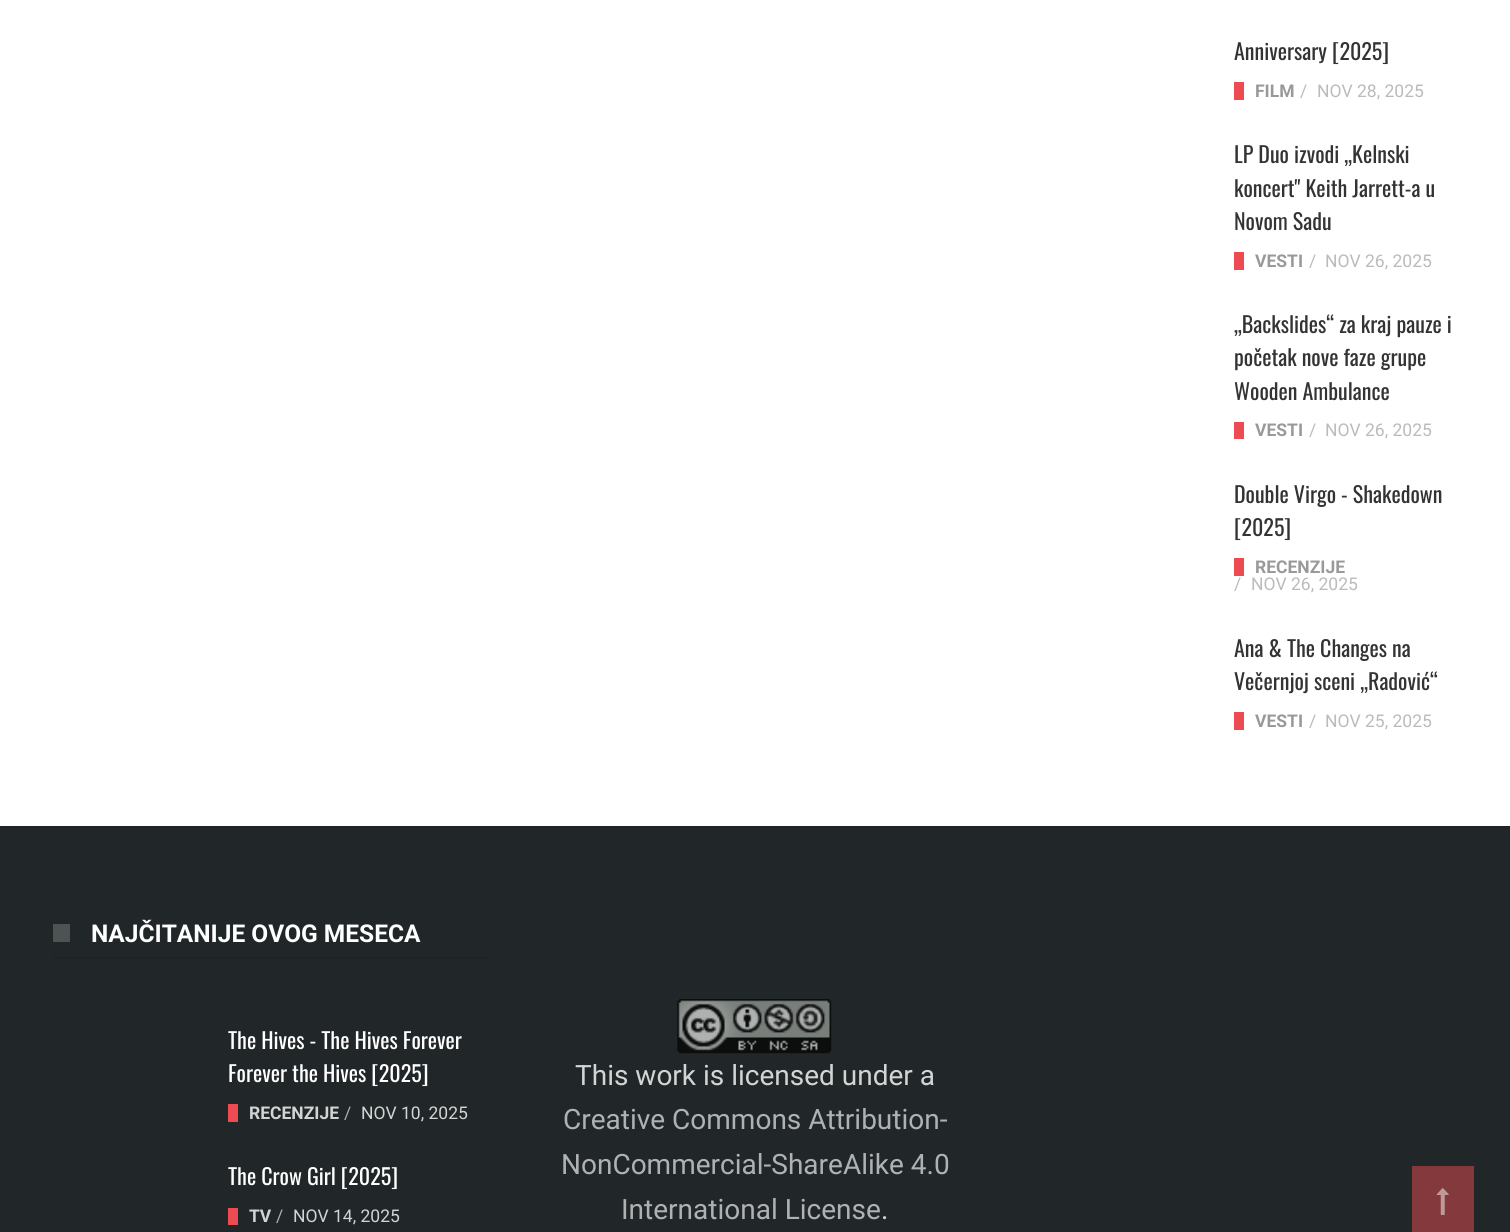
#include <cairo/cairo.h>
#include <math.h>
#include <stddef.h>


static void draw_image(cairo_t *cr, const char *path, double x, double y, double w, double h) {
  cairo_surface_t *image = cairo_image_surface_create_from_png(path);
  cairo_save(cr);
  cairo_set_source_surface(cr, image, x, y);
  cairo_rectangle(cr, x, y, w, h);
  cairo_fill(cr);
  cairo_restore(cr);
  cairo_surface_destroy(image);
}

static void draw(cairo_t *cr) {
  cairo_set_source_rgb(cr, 1, 1, 1);
  cairo_paint(cr);
  cairo_set_source_rgb(cr, 236 / 255.0, 76 / 255.0, 81 / 255.0);
  cairo_rectangle(cr, 1234, 82, 10, 18);
  cairo_fill(cr);
  cairo_rectangle(cr, 1234, 252, 10, 18);
  cairo_fill(cr);
  cairo_rectangle(cr, 1234, 422, 10, 17);
  cairo_fill(cr);
  cairo_rectangle(cr, 1234, 558, 10, 18);
  cairo_fill(cr);
  cairo_rectangle(cr, 1234, 712, 10, 18);
  cairo_fill(cr);
  cairo_set_source_rgb(cr, 33 / 255.0, 39 / 255.0, 40 / 255.0);
  cairo_rectangle(cr, 0, 828, 1510, 404);
  cairo_fill(cr);
  cairo_set_source_rgb(cr, 30 / 255.0, 35 / 255.0, 36 / 255.0);
  cairo_rectangle(cr, 0, 826, 1510, 2);
  cairo_fill(cr);
  cairo_set_source_rgb(cr, 30 / 255.0, 36 / 255.0, 37 / 255.0);
  cairo_rectangle(cr, 53, 957, 434, 2);
  cairo_fill(cr);
  cairo_set_source_rgb(cr, 77 / 255.0, 82 / 255.0, 83 / 255.0);
  cairo_rectangle(cr, 53, 924, 17, 18);
  cairo_fill(cr);
  cairo_set_source_rgb(cr, 236 / 255.0, 76 / 255.0, 81 / 255.0);
  cairo_rectangle(cr, 228, 1104, 10, 18);
  cairo_fill(cr);
  cairo_rectangle(cr, 228, 1208, 10, 17);
  cairo_fill(cr);
  draw_image(cr, "images/1.png", 677, 999, 155, 55);
  cairo_set_source_rgb(cr, 132 / 255.0, 57 / 255.0, 60 / 255.0);
  cairo_rectangle(cr, 1412, 1166, 62, 66);
  cairo_fill(cr);
  draw_image(cr, "images/2.png", 1436, 1188, 13, 27);
  cairo_select_font_face(cr, "Oswald", CAIRO_FONT_SLANT_NORMAL, CAIRO_FONT_WEIGHT_NORMAL);
  cairo_set_font_size(cr, 22);
  cairo_set_source_rgb(cr, 51 / 255.0, 51 / 255.0, 51 / 255.0);
  cairo_move_to(cr, 1234, 60);
  cairo_show_text(cr, "Anniversary [2025]");
  cairo_select_font_face(cr, "Roboto", CAIRO_FONT_SLANT_NORMAL, CAIRO_FONT_WEIGHT_BOLD);
  cairo_set_font_size(cr, 17.5);
  cairo_set_source_rgb(cr, 153 / 255.0, 153 / 255.0, 153 / 255.0);
  cairo_move_to(cr, 1255, 97);
  cairo_show_text(cr, "FILM");
  cairo_select_font_face(cr, "Roboto", CAIRO_FONT_SLANT_NORMAL, CAIRO_FONT_WEIGHT_NORMAL);
  cairo_set_source_rgb(cr, 187 / 255.0, 187 / 255.0, 187 / 255.0);
  cairo_move_to(cr, 1300, 97);
  cairo_show_text(cr, "/");
  cairo_move_to(cr, 1317, 97);
  cairo_show_text(cr, "NOV 28, 2025");
  cairo_select_font_face(cr, "Oswald", CAIRO_FONT_SLANT_NORMAL, CAIRO_FONT_WEIGHT_NORMAL);
  cairo_set_font_size(cr, 22);
  cairo_set_source_rgb(cr, 51 / 255.0, 51 / 255.0, 51 / 255.0);
  cairo_move_to(cr, 1234, 163);
  cairo_show_text(cr, "LP Duo izvodi „Kelnski");
  cairo_move_to(cr, 1234, 197);
  cairo_show_text(cr, "koncert\" Keith Jarrett-a u");
  cairo_move_to(cr, 1234, 230);
  cairo_show_text(cr, "Novom Sadu");
  cairo_select_font_face(cr, "Roboto", CAIRO_FONT_SLANT_NORMAL, CAIRO_FONT_WEIGHT_BOLD);
  cairo_set_font_size(cr, 17.5);
  cairo_set_source_rgb(cr, 153 / 255.0, 153 / 255.0, 153 / 255.0);
  cairo_move_to(cr, 1255, 267);
  cairo_show_text(cr, "VESTI");
  cairo_select_font_face(cr, "Roboto", CAIRO_FONT_SLANT_NORMAL, CAIRO_FONT_WEIGHT_NORMAL);
  cairo_set_source_rgb(cr, 187 / 255.0, 187 / 255.0, 187 / 255.0);
  cairo_move_to(cr, 1309, 267);
  cairo_show_text(cr, "/");
  cairo_move_to(cr, 1325, 267);
  cairo_show_text(cr, "NOV 26, 2025");
  cairo_select_font_face(cr, "Oswald", CAIRO_FONT_SLANT_NORMAL, CAIRO_FONT_WEIGHT_NORMAL);
  cairo_set_font_size(cr, 22);
  cairo_set_source_rgb(cr, 51 / 255.0, 51 / 255.0, 51 / 255.0);
  cairo_move_to(cr, 1234, 333);
  cairo_show_text(cr, "„Backslides“ za kraj pauze i");
  cairo_move_to(cr, 1234, 366);
  cairo_show_text(cr, "početak nove faze grupe");
  cairo_move_to(cr, 1234, 400);
  cairo_show_text(cr, "Wooden Ambulance");
  cairo_select_font_face(cr, "Roboto", CAIRO_FONT_SLANT_NORMAL, CAIRO_FONT_WEIGHT_BOLD);
  cairo_set_font_size(cr, 17.5);
  cairo_set_source_rgb(cr, 153 / 255.0, 153 / 255.0, 153 / 255.0);
  cairo_move_to(cr, 1255, 436);
  cairo_show_text(cr, "VESTI");
  cairo_select_font_face(cr, "Roboto", CAIRO_FONT_SLANT_NORMAL, CAIRO_FONT_WEIGHT_NORMAL);
  cairo_set_source_rgb(cr, 187 / 255.0, 187 / 255.0, 187 / 255.0);
  cairo_move_to(cr, 1309, 436);
  cairo_show_text(cr, "/");
  cairo_move_to(cr, 1325, 436);
  cairo_show_text(cr, "NOV 26, 2025");
  cairo_select_font_face(cr, "Oswald", CAIRO_FONT_SLANT_NORMAL, CAIRO_FONT_WEIGHT_NORMAL);
  cairo_set_font_size(cr, 22);
  cairo_set_source_rgb(cr, 51 / 255.0, 51 / 255.0, 51 / 255.0);
  cairo_move_to(cr, 1234, 503);
  cairo_show_text(cr, "Double Virgo - Shakedown");
  cairo_move_to(cr, 1234, 536);
  cairo_show_text(cr, "[2025]");
  cairo_select_font_face(cr, "Roboto", CAIRO_FONT_SLANT_NORMAL, CAIRO_FONT_WEIGHT_BOLD);
  cairo_set_font_size(cr, 17.5);
  cairo_set_source_rgb(cr, 153 / 255.0, 153 / 255.0, 153 / 255.0);
  cairo_move_to(cr, 1255, 573);
  cairo_show_text(cr, "RECENZIJE");
  cairo_select_font_face(cr, "Roboto", CAIRO_FONT_SLANT_NORMAL, CAIRO_FONT_WEIGHT_NORMAL);
  cairo_set_source_rgb(cr, 187 / 255.0, 187 / 255.0, 187 / 255.0);
  cairo_move_to(cr, 1234, 590);
  cairo_show_text(cr, "/");
  cairo_move_to(cr, 1251, 590);
  cairo_show_text(cr, "NOV 26, 2025");
  cairo_select_font_face(cr, "Oswald", CAIRO_FONT_SLANT_NORMAL, CAIRO_FONT_WEIGHT_NORMAL);
  cairo_set_font_size(cr, 22);
  cairo_set_source_rgb(cr, 51 / 255.0, 51 / 255.0, 51 / 255.0);
  cairo_move_to(cr, 1234, 657);
  cairo_show_text(cr, "Ana & The Changes na");
  cairo_move_to(cr, 1234, 690);
  cairo_show_text(cr, "Večernjoj sceni „Radović“");
  cairo_select_font_face(cr, "Roboto", CAIRO_FONT_SLANT_NORMAL, CAIRO_FONT_WEIGHT_BOLD);
  cairo_set_font_size(cr, 17.5);
  cairo_set_source_rgb(cr, 153 / 255.0, 153 / 255.0, 153 / 255.0);
  cairo_move_to(cr, 1255, 727);
  cairo_show_text(cr, "VESTI");
  cairo_select_font_face(cr, "Roboto", CAIRO_FONT_SLANT_NORMAL, CAIRO_FONT_WEIGHT_NORMAL);
  cairo_set_source_rgb(cr, 187 / 255.0, 187 / 255.0, 187 / 255.0);
  cairo_move_to(cr, 1309, 727);
  cairo_show_text(cr, "/");
  cairo_move_to(cr, 1325, 727);
  cairo_show_text(cr, "NOV 25, 2025");
  cairo_select_font_face(cr, "Roboto", CAIRO_FONT_SLANT_NORMAL, CAIRO_FONT_WEIGHT_BOLD);
  cairo_set_font_size(cr, 24.5);
  cairo_set_source_rgb(cr, 1, 1, 1);
  cairo_move_to(cr, 91, 942);
  cairo_show_text(cr, "NAJČITANIJE OVOG MESECA");
  cairo_select_font_face(cr, "Oswald", CAIRO_FONT_SLANT_NORMAL, CAIRO_FONT_WEIGHT_NORMAL);
  cairo_set_font_size(cr, 22);
  cairo_move_to(cr, 228, 1049);
  cairo_show_text(cr, "The Hives - The Hives Forever");
  cairo_move_to(cr, 228, 1082);
  cairo_show_text(cr, "Forever the Hives [2025]");
  cairo_select_font_face(cr, "Roboto", CAIRO_FONT_SLANT_NORMAL, CAIRO_FONT_WEIGHT_BOLD);
  cairo_set_font_size(cr, 17.5);
  cairo_set_source_rgb(cr, 211 / 255.0, 212 / 255.0, 212 / 255.0);
  cairo_move_to(cr, 249, 1119);
  cairo_show_text(cr, "RECENZIJE");
  cairo_select_font_face(cr, "Roboto", CAIRO_FONT_SLANT_NORMAL, CAIRO_FONT_WEIGHT_NORMAL);
  cairo_set_source_rgb(cr, 175 / 255.0, 177 / 255.0, 178 / 255.0);
  cairo_move_to(cr, 344, 1119);
  cairo_show_text(cr, "/");
  cairo_set_source_rgb(cr, 211 / 255.0, 212 / 255.0, 212 / 255.0);
  cairo_move_to(cr, 361, 1119);
  cairo_show_text(cr, "NOV 10, 2025");
  cairo_select_font_face(cr, "Oswald", CAIRO_FONT_SLANT_NORMAL, CAIRO_FONT_WEIGHT_NORMAL);
  cairo_set_font_size(cr, 22);
  cairo_set_source_rgb(cr, 1, 1, 1);
  cairo_move_to(cr, 228, 1185);
  cairo_show_text(cr, "The Crow Girl [2025]");
  cairo_select_font_face(cr, "Roboto", CAIRO_FONT_SLANT_NORMAL, CAIRO_FONT_WEIGHT_BOLD);
  cairo_set_font_size(cr, 17.5);
  cairo_set_source_rgb(cr, 211 / 255.0, 212 / 255.0, 212 / 255.0);
  cairo_move_to(cr, 249, 1222);
  cairo_show_text(cr, "TV");
  cairo_select_font_face(cr, "Roboto", CAIRO_FONT_SLANT_NORMAL, CAIRO_FONT_WEIGHT_NORMAL);
  cairo_set_source_rgb(cr, 175 / 255.0, 177 / 255.0, 178 / 255.0);
  cairo_move_to(cr, 276, 1222);
  cairo_show_text(cr, "/");
  cairo_set_source_rgb(cr, 211 / 255.0, 212 / 255.0, 212 / 255.0);
  cairo_move_to(cr, 293, 1222);
  cairo_show_text(cr, "NOV 14, 2025");
  cairo_set_font_size(cr, 28);
  cairo_move_to(cr, 575, 1085);
  cairo_show_text(cr, "This work is licensed under a");
  cairo_set_source_rgb(cr, 175 / 255.0, 177 / 255.0, 178 / 255.0);
  cairo_move_to(cr, 563, 1129);
  cairo_show_text(cr, "Creative Commons Attribution-");
  cairo_move_to(cr, 561, 1174);
  cairo_show_text(cr, "NonCommercial-ShareAlike 4.0");
  cairo_move_to(cr, 621, 1219);
  cairo_show_text(cr, "International License");
  cairo_set_source_rgb(cr, 211 / 255.0, 212 / 255.0, 212 / 255.0);
  cairo_move_to(cr, 881, 1219);
  cairo_show_text(cr, ".");
}

int main(void) {
  cairo_surface_t *surface = cairo_image_surface_create(CAIRO_FORMAT_RGB24, 1510, 1232);
  cairo_t *cr = cairo_create(surface);
  cairo_font_options_t *options = cairo_font_options_create();
  cairo_font_options_set_hint_metrics(options, CAIRO_HINT_METRICS_OFF);
  cairo_font_options_set_hint_style(options, CAIRO_HINT_STYLE_NONE);
  cairo_set_font_options(cr, options);
  cairo_set_miter_limit(cr, 4);
  draw(cr);
  cairo_surface_write_to_png(surface, "out.png");
  cairo_font_options_destroy(options);
  cairo_destroy(cr);
  cairo_surface_destroy(surface);
  return 0;
}
